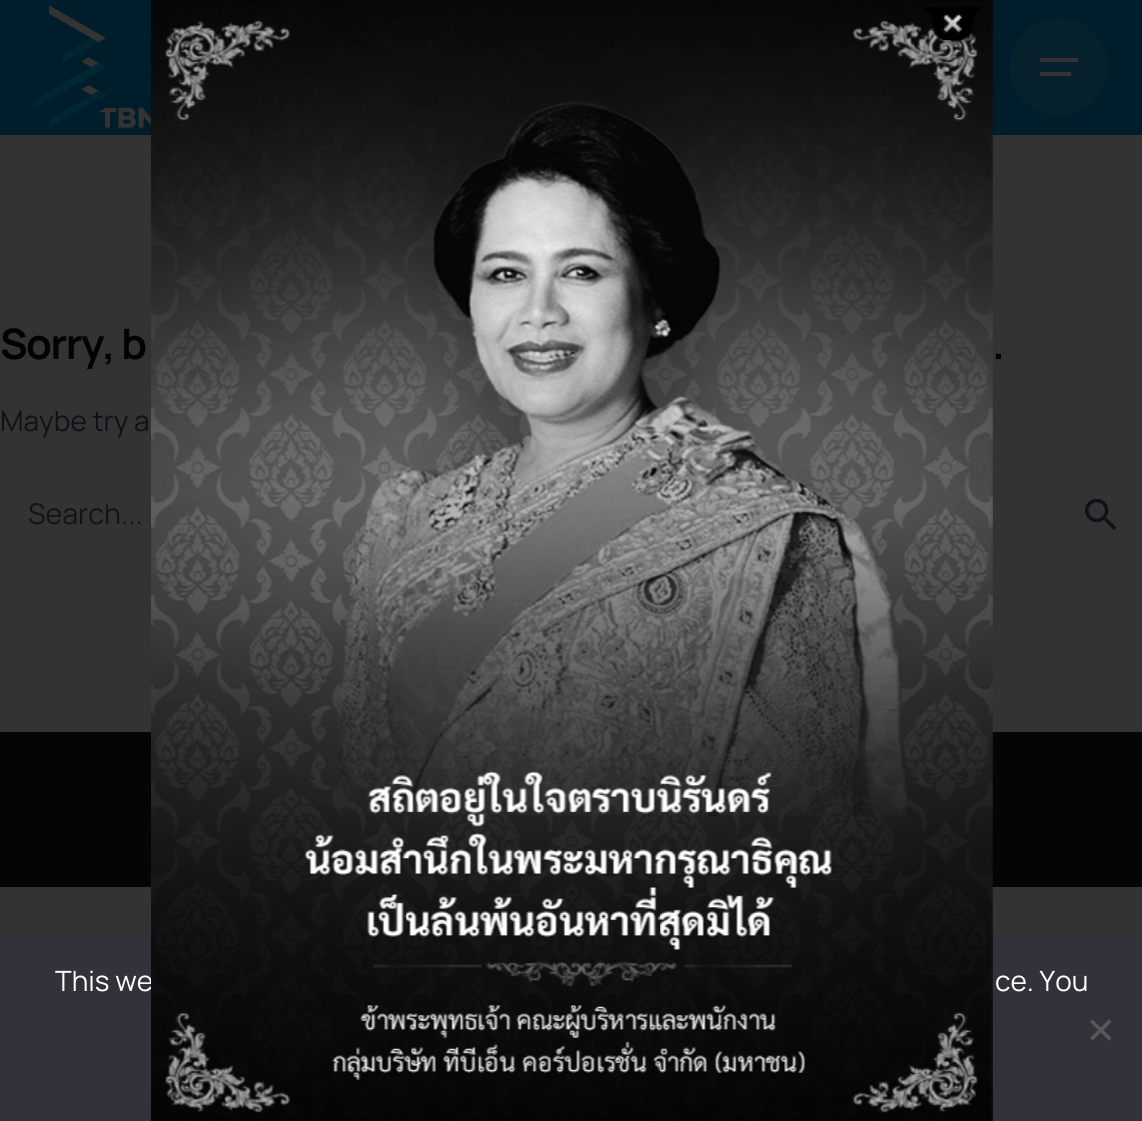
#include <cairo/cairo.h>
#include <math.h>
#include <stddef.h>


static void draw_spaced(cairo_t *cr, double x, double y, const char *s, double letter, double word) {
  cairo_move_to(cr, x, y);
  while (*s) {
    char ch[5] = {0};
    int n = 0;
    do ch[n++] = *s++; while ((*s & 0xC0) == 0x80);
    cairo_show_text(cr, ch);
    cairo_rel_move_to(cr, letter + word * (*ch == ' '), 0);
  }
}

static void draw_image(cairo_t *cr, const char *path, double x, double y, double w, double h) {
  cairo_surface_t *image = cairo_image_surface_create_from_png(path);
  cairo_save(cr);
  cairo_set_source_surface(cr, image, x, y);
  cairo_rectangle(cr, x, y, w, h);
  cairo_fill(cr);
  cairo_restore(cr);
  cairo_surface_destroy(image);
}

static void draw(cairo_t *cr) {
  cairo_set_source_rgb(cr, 51 / 255.0, 51 / 255.0, 51 / 255.0);
  cairo_paint(cr);
  cairo_set_source_rgb(cr, 0, 29 / 255.0, 44 / 255.0);
  cairo_rectangle(cr, 0, 0, 1142, 135);
  cairo_fill(cr);
  draw_image(cr, "images/3.png", 35, 5, 116, 123);
  cairo_set_source_rgb(cr, 6 / 255.0, 32 / 255.0, 44 / 255.0);
  cairo_arc(cr, 1059, 67, 49, 0, 2 * M_PI);
  cairo_fill(cr);
  cairo_set_source_rgb(cr, 51 / 255.0, 51 / 255.0, 51 / 255.0);
  cairo_rectangle(cr, 1040, 58, 38, 4);
  cairo_fill(cr);
  cairo_rectangle(cr, 1040, 72, 31, 4);
  cairo_fill(cr);
  draw_image(cr, "images/4.png", 1085, 499, 32, 31);
  cairo_set_source_rgb(cr, 5 / 255.0, 5 / 255.0, 5 / 255.0);
  cairo_rectangle(cr, 0, 732, 1142, 155);
  cairo_fill(cr);
  cairo_set_source_rgb(cr, 50 / 255.0, 50 / 255.0, 58 / 255.0);
  cairo_rectangle(cr, 0, 936, 1142, 185);
  cairo_fill(cr);
  cairo_set_source_rgb(cr, 89 / 255.0, 89 / 255.0, 93 / 255.0);
  cairo_new_path(cr);
  cairo_move_to(cr, 1109, 1019.5);
  cairo_line_to(cr, 1111.5, 1022);
  cairo_line_to(cr, 1092.5, 1040.5);
  cairo_line_to(cr, 1090, 1038);
  cairo_close_path(cr);
  cairo_fill(cr);
  cairo_new_path(cr);
  cairo_move_to(cr, 1090, 1022);
  cairo_line_to(cr, 1092.5, 1019.5);
  cairo_line_to(cr, 1111.5, 1038);
  cairo_line_to(cr, 1109, 1040.5);
  cairo_close_path(cr);
  cairo_fill(cr);
  cairo_select_font_face(cr, "Manrope", CAIRO_FONT_SLANT_NORMAL, CAIRO_FONT_WEIGHT_BOLD);
  cairo_set_font_size(cr, 42);
  cairo_set_source_rgb(cr, 3 / 255.0, 3 / 255.0, 4 / 255.0);
  draw_spaced(cr, 0, 359, "Sorry, b", -1.5, 0);
  draw_spaced(cr, 992, 359, ".", -1.5, 0);
  cairo_select_font_face(cr, "Manrope", CAIRO_FONT_SLANT_NORMAL, CAIRO_FONT_WEIGHT_NORMAL);
  cairo_set_font_size(cr, 28);
  cairo_set_source_rgb(cr, 14 / 255.0, 17 / 255.0, 21 / 255.0);
  cairo_move_to(cr, 0, 431);
  cairo_show_text(cr, "Maybe try a");
  cairo_set_font_size(cr, 28.5);
  cairo_set_source_rgb(cr, 20 / 255.0, 19 / 255.0, 22 / 255.0);
  cairo_move_to(cr, 28, 524);
  cairo_show_text(cr, "Search...");
  cairo_set_font_size(cr, 28);
  cairo_set_source_rgb(cr, 1, 1, 1);
  cairo_move_to(cr, 55, 991);
  cairo_show_text(cr, "This we");
  draw_image(cr, "images/1.png", 151, 0, 842, 1121);
  draw_image(cr, "images/2.png", 924, 7, 58, 34);
  cairo_move_to(cr, 995, 991);
  cairo_show_text(cr, "ce. You");
}

int main(void) {
  cairo_surface_t *surface = cairo_image_surface_create(CAIRO_FORMAT_RGB24, 1142, 1121);
  cairo_t *cr = cairo_create(surface);
  cairo_font_options_t *options = cairo_font_options_create();
  cairo_font_options_set_hint_metrics(options, CAIRO_HINT_METRICS_OFF);
  cairo_font_options_set_hint_style(options, CAIRO_HINT_STYLE_NONE);
  cairo_set_font_options(cr, options);
  cairo_set_miter_limit(cr, 4);
  draw(cr);
  cairo_surface_write_to_png(surface, "out.png");
  cairo_font_options_destroy(options);
  cairo_destroy(cr);
  cairo_surface_destroy(surface);
  return 0;
}
